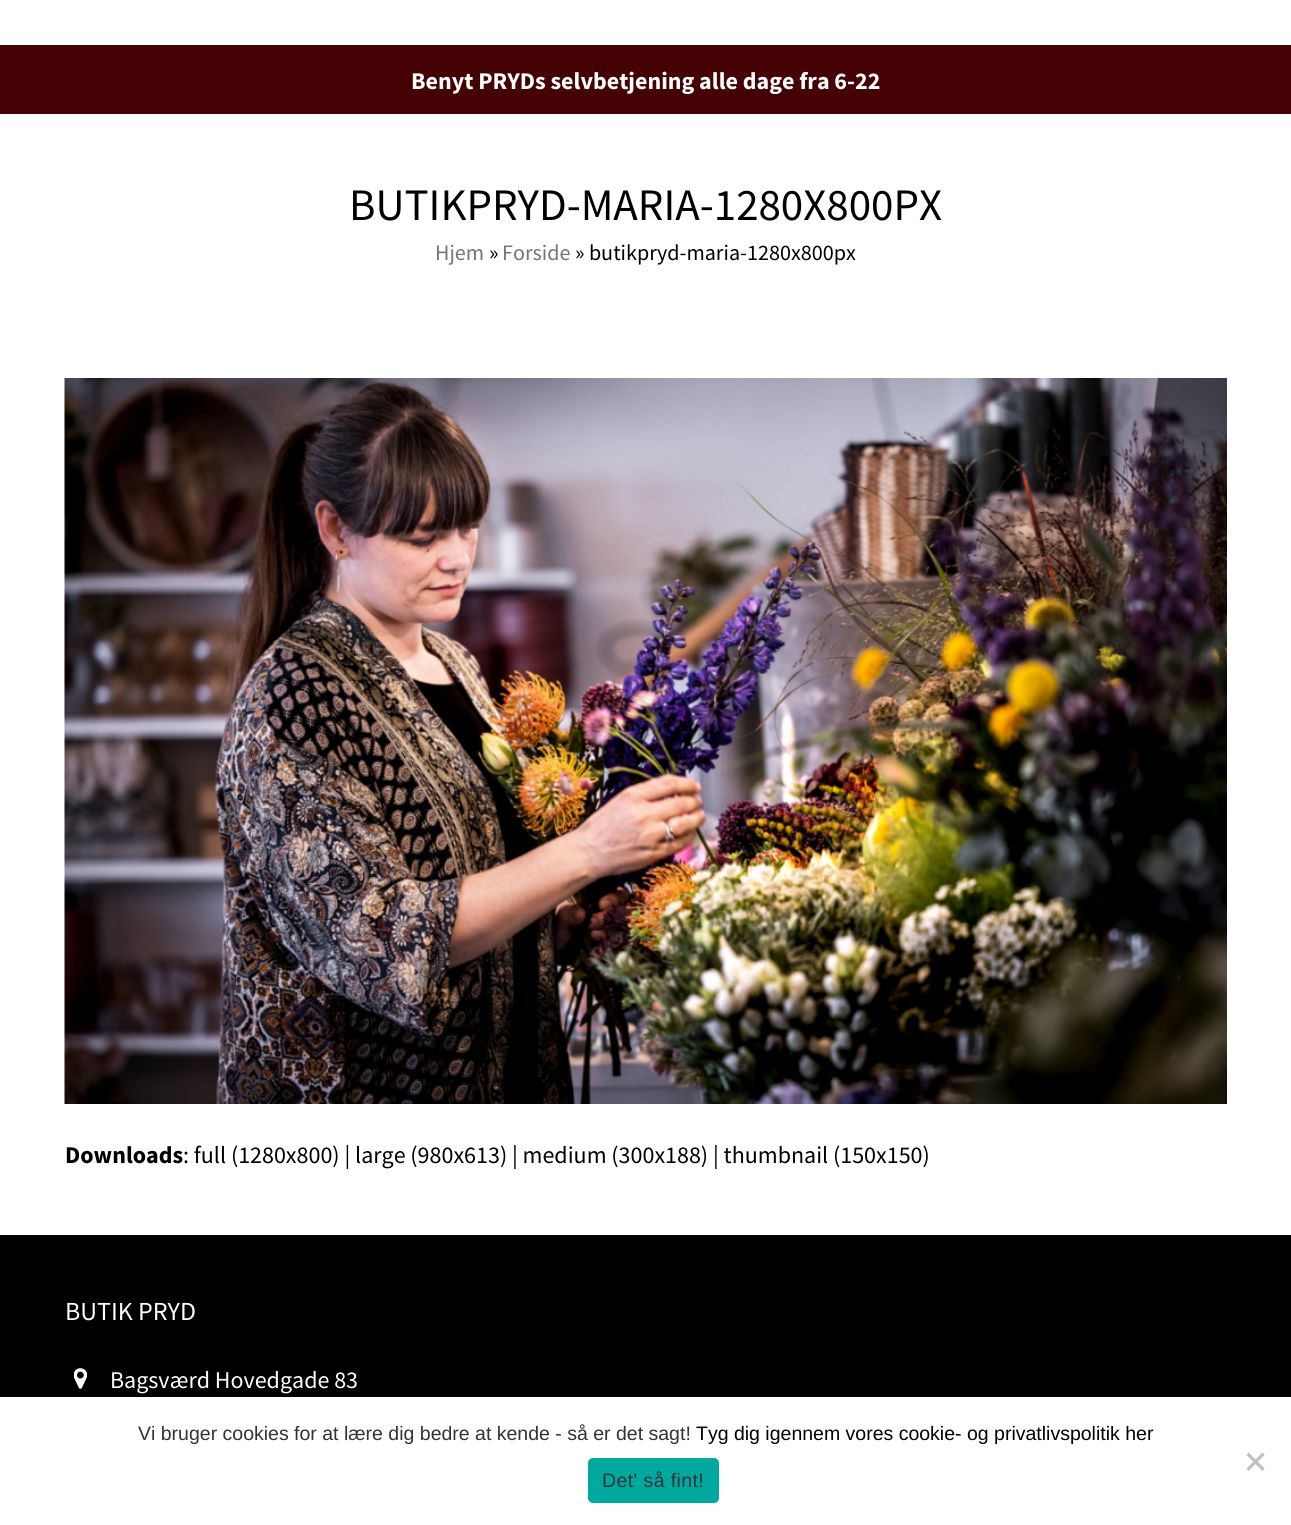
#include <cairo/cairo.h>
#include <math.h>
#include <stddef.h>


static void draw_spaced(cairo_t *cr, double x, double y, const char *s, double letter, double word) {
  cairo_move_to(cr, x, y);
  while (*s) {
    char ch[5] = {0};
    int n = 0;
    do ch[n++] = *s++; while ((*s & 0xC0) == 0x80);
    cairo_show_text(cr, ch);
    cairo_rel_move_to(cr, letter + word * (*ch == ' '), 0);
  }
}

static void rounded_rect(cairo_t *cr, double x, double y, double w, double h, double r) {
  cairo_new_sub_path(cr);
  cairo_arc(cr, x + w - r, y + h - r, r, 0, M_PI / 2);
  cairo_arc(cr, x + r, y + h - r, r, M_PI / 2, M_PI);
  cairo_arc(cr, x + r, y + r, r, M_PI, 1.5 * M_PI);
  cairo_arc(cr, x + w - r, y + r, r, 1.5 * M_PI, 2 * M_PI);
  cairo_close_path(cr);
}

static void draw_image(cairo_t *cr, const char *path, double x, double y, double w, double h) {
  cairo_surface_t *image = cairo_image_surface_create_from_png(path);
  cairo_save(cr);
  cairo_set_source_surface(cr, image, x, y);
  cairo_rectangle(cr, x, y, w, h);
  cairo_fill(cr);
  cairo_restore(cr);
  cairo_surface_destroy(image);
}

static void draw(cairo_t *cr) {
  cairo_set_source_rgb(cr, 1, 1, 1);
  cairo_paint(cr);
  cairo_set_source_rgb(cr, 69 / 255.0, 2 / 255.0, 5 / 255.0);
  cairo_rectangle(cr, 0, 45, 1291, 69);
  cairo_fill(cr);
  draw_image(cr, "images/1.png", 64, 378, 1163, 726);
  cairo_set_source_rgb(cr, 0, 0, 0);
  cairo_rectangle(cr, 0, 1235, 1291, 162);
  cairo_fill(cr);
  draw_image(cr, "images/2.png", 74, 1368, 13, 21);
  cairo_set_source_rgb(cr, 192 / 255.0, 192 / 255.0, 192 / 255.0);
  cairo_new_path(cr);
  cairo_move_to(cr, 1262.5, 1452.5);
  cairo_line_to(cr, 1264.5, 1455);
  cairo_line_to(cr, 1248.5, 1471);
  cairo_line_to(cr, 1246.5, 1468.5);
  cairo_close_path(cr);
  cairo_fill(cr);
  cairo_new_path(cr);
  cairo_move_to(cr, 1246.5, 1455);
  cairo_line_to(cr, 1248.5, 1452.5);
  cairo_line_to(cr, 1264.5, 1468.5);
  cairo_line_to(cr, 1262.5, 1471);
  cairo_close_path(cr);
  cairo_fill(cr);
  cairo_set_source_rgb(cr, 0, 169 / 255.0, 157 / 255.0);
  rounded_rect(cr, 588, 1458, 131, 45, 5);
  cairo_fill(cr);
  cairo_select_font_face(cr, "Source Sans Pro", CAIRO_FONT_SLANT_NORMAL, CAIRO_FONT_WEIGHT_BOLD);
  cairo_set_font_size(cr, 24);
  cairo_set_source_rgb(cr, 1, 1, 1);
  cairo_move_to(cr, 411, 89);
  cairo_show_text(cr, "Benyt PRYDs selvbetjening alle dage fra 6-22");
  cairo_select_font_face(cr, "Source Sans Pro", CAIRO_FONT_SLANT_NORMAL, CAIRO_FONT_WEIGHT_NORMAL);
  cairo_set_font_size(cr, 45);
  cairo_set_source_rgb(cr, 0, 0, 0);
  cairo_move_to(cr, 349, 220);
  cairo_show_text(cr, "BUTIKPRYD-MARIA-1280X800PX");
  cairo_set_font_size(cr, 22.1);
  cairo_set_source_rgb(cr, 117 / 255.0, 117 / 255.0, 117 / 255.0);
  cairo_move_to(cr, 435, 260);
  cairo_show_text(cr, "Hjem");
  cairo_set_source_rgb(cr, 0, 0, 0);
  cairo_move_to(cr, 489, 260);
  cairo_show_text(cr, "»");
  cairo_set_source_rgb(cr, 117 / 255.0, 117 / 255.0, 117 / 255.0);
  cairo_move_to(cr, 502, 260);
  cairo_show_text(cr, "Forside");
  cairo_set_source_rgb(cr, 0, 0, 0);
  cairo_move_to(cr, 575, 260);
  cairo_show_text(cr, "» butikpryd-maria-1280x800px");
  cairo_select_font_face(cr, "Source Sans Pro", CAIRO_FONT_SLANT_NORMAL, CAIRO_FONT_WEIGHT_BOLD);
  cairo_set_font_size(cr, 24);
  cairo_move_to(cr, 65, 1163);
  cairo_show_text(cr, "Downloads");
  cairo_select_font_face(cr, "Source Sans Pro", CAIRO_FONT_SLANT_NORMAL, CAIRO_FONT_WEIGHT_NORMAL);
  cairo_move_to(cr, 183, 1163);
  cairo_show_text(cr, ": full (1280x800) | large (980x613) | medium (300x188) | thumbnail (150x150)");
  cairo_set_font_size(cr, 26);
  cairo_set_source_rgb(cr, 1, 1, 1);
  cairo_move_to(cr, 65, 1320);
  cairo_show_text(cr, "BUTIK PRYD");
  cairo_set_font_size(cr, 24);
  cairo_move_to(cr, 110, 1388);
  cairo_show_text(cr, "Bagsværd Hovedgade 83");
  cairo_select_font_face(cr, "Liberation Sans", CAIRO_FONT_SLANT_NORMAL, CAIRO_FONT_WEIGHT_NORMAL);
  cairo_set_font_size(cr, 19.5);
  cairo_set_source_rgb(cr, 50 / 255.0, 50 / 255.0, 58 / 255.0);
  cairo_move_to(cr, 138, 1440);
  cairo_show_text(cr, "Vi bruger cookies for at lære dig bedre at kende - så er det sagt!");
  cairo_set_source_rgb(cr, 0, 0, 0);
  cairo_move_to(cr, 696, 1440);
  cairo_show_text(cr, "Tyg dig igennem vores cookie- og privatlivspolitik her");
  cairo_set_source_rgb(cr, 50 / 255.0, 50 / 255.0, 58 / 255.0);
  draw_spaced(cr, 602, 1487, "Det' så fint!", 0.4, 0);
}

int main(void) {
  cairo_surface_t *surface = cairo_image_surface_create(CAIRO_FORMAT_RGB24, 1291, 1525);
  cairo_t *cr = cairo_create(surface);
  cairo_font_options_t *options = cairo_font_options_create();
  cairo_font_options_set_hint_metrics(options, CAIRO_HINT_METRICS_OFF);
  cairo_font_options_set_hint_style(options, CAIRO_HINT_STYLE_NONE);
  cairo_set_font_options(cr, options);
  cairo_set_miter_limit(cr, 4);
  draw(cr);
  cairo_surface_write_to_png(surface, "out.png");
  cairo_font_options_destroy(options);
  cairo_destroy(cr);
  cairo_surface_destroy(surface);
  return 0;
}
